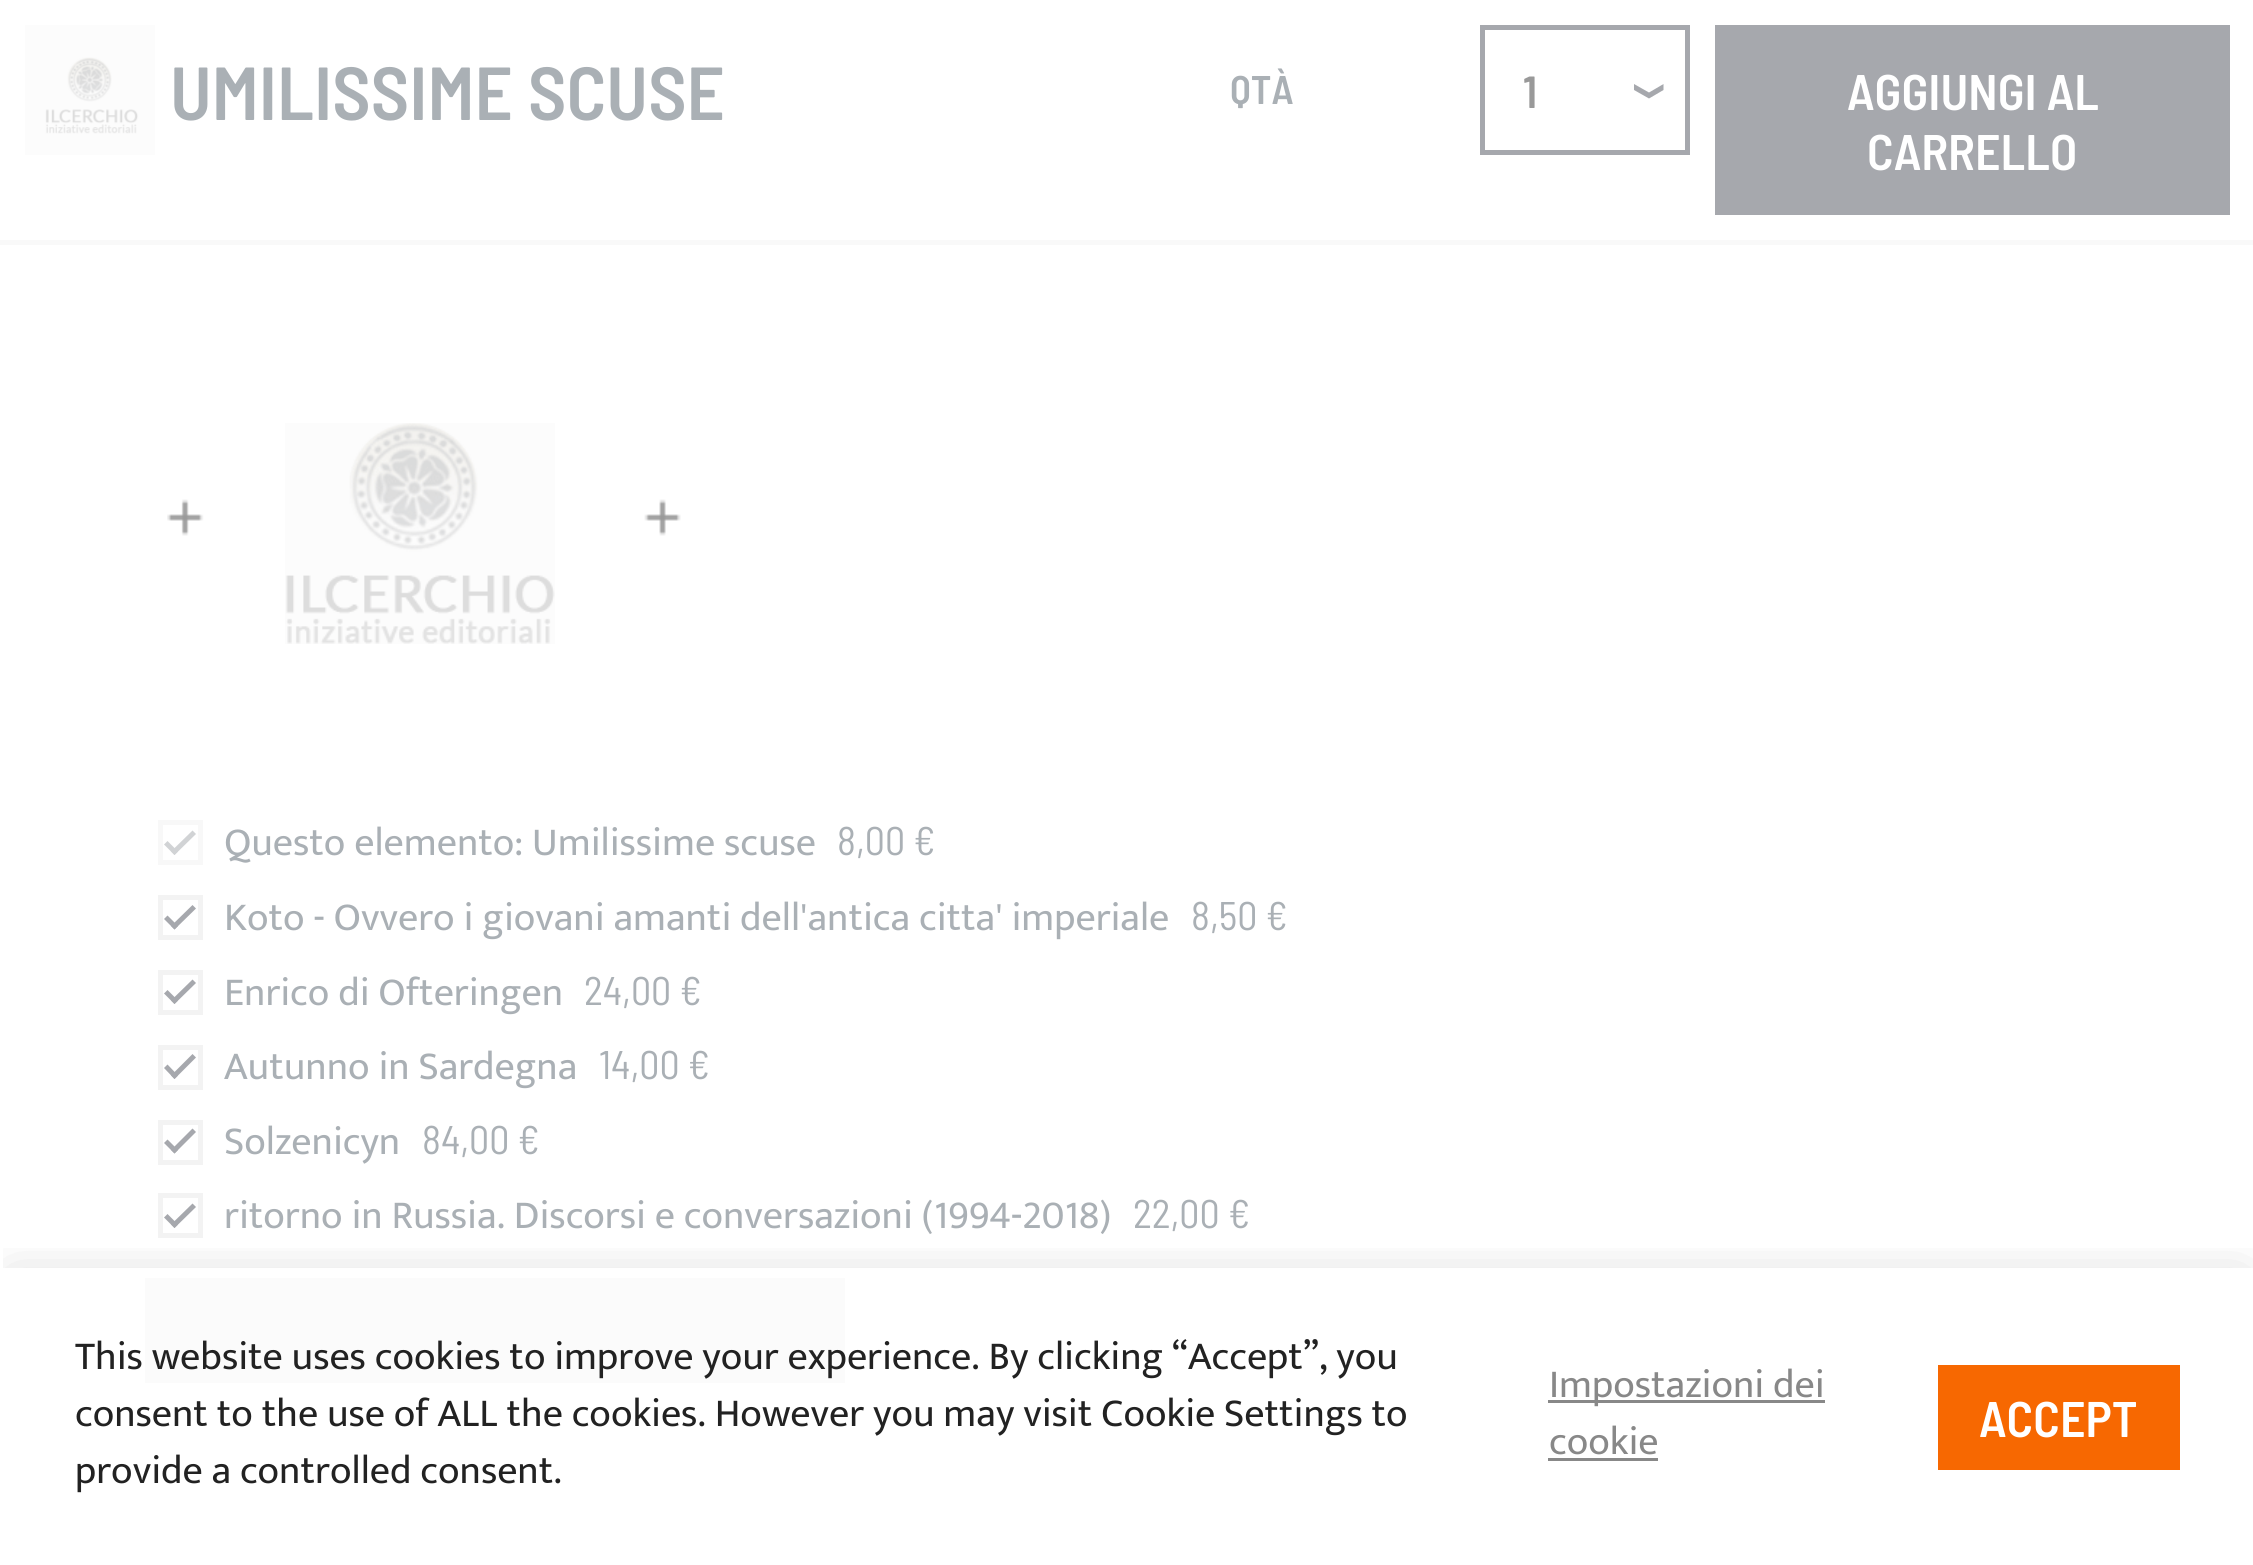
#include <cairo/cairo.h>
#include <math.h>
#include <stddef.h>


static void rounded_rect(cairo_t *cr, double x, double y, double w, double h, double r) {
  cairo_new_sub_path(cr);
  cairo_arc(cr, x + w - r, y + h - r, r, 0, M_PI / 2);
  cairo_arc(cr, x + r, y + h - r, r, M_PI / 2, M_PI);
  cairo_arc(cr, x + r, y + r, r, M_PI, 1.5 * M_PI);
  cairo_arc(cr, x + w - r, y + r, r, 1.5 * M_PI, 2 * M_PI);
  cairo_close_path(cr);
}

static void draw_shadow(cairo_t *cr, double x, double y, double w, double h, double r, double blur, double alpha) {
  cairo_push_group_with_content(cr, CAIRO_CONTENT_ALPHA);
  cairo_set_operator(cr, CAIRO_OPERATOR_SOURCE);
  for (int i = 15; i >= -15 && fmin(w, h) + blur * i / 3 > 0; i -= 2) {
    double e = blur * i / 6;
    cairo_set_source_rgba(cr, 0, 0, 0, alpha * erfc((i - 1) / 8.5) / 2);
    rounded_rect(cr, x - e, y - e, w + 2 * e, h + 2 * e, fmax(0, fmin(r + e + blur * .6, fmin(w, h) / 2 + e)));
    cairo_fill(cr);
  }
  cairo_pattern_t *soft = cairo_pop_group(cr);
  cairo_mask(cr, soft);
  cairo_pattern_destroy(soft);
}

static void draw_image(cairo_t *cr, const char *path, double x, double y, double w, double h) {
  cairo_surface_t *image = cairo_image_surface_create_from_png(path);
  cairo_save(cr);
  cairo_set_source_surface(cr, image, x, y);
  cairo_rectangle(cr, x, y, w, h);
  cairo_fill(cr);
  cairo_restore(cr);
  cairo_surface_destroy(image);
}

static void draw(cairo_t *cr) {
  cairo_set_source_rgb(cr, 1, 1, 1);
  cairo_paint(cr);
  cairo_set_source_rgb(cr, 249 / 255.0, 249 / 255.0, 249 / 255.0);
  cairo_rectangle(cr, 0, 240, 2253, 5);
  cairo_fill(cr);
  draw_image(cr, "images/1.png", 25, 25, 130, 130);
  cairo_rectangle(cr, 1482.5, 27.5, 205, 125);
  cairo_set_source_rgb(cr, 166 / 255.0, 168 / 255.0, 173 / 255.0);
  cairo_set_line_width(cr, 5);
  cairo_stroke(cr);
  cairo_new_path(cr);
  cairo_move_to(cr, 1649, 98.5);
  cairo_line_to(cr, 1634, 90);
  cairo_line_to(cr, 1634, 84);
  cairo_line_to(cr, 1649, 92.5);
  cairo_line_to(cr, 1663.5, 84);
  cairo_line_to(cr, 1663.5, 90);
  cairo_close_path(cr);
  cairo_fill(cr);
  cairo_rectangle(cr, 1715, 25, 515, 190);
  cairo_fill(cr);
  draw_image(cr, "images/2.png", 167, 499, 37, 37);
  draw_image(cr, "images/3.png", 285, 423, 270, 221);
  draw_image(cr, "images/4.png", 644, 499, 37, 37);
  cairo_rectangle(cr, 160.5, 822.5, 40, 40);
  cairo_set_source_rgb(cr, 248 / 255.0, 248 / 255.0, 248 / 255.0);
  cairo_stroke(cr);
  cairo_set_source_rgb(cr, 209 / 255.0, 211 / 255.0, 213 / 255.0);
  cairo_new_path(cr);
  cairo_move_to(cr, 171, 851.5);
  cairo_line_to(cr, 192.5, 830.5);
  cairo_line_to(cr, 196, 834);
  cairo_line_to(cr, 174.5, 855);
  cairo_close_path(cr);
  cairo_fill(cr);
  cairo_new_path(cr);
  cairo_move_to(cr, 164, 844.5);
  cairo_line_to(cr, 167.5, 841);
  cairo_line_to(cr, 178, 851.5);
  cairo_line_to(cr, 174.5, 855);
  cairo_close_path(cr);
  cairo_fill(cr);
  cairo_rectangle(cr, 160.5, 897.5, 40, 40);
  cairo_set_source_rgb(cr, 243 / 255.0, 243 / 255.0, 243 / 255.0);
  cairo_stroke(cr);
  cairo_set_source_rgb(cr, 166 / 255.0, 168 / 255.0, 173 / 255.0);
  cairo_new_path(cr);
  cairo_move_to(cr, 171, 926);
  cairo_line_to(cr, 192.5, 905);
  cairo_line_to(cr, 196, 908.5);
  cairo_line_to(cr, 174.5, 929.5);
  cairo_close_path(cr);
  cairo_fill(cr);
  cairo_new_path(cr);
  cairo_move_to(cr, 164, 919);
  cairo_line_to(cr, 167.5, 915.5);
  cairo_line_to(cr, 178, 926);
  cairo_line_to(cr, 174.5, 929.5);
  cairo_close_path(cr);
  cairo_fill(cr);
  cairo_rectangle(cr, 160.5, 972.5, 40, 40);
  cairo_set_source_rgb(cr, 243 / 255.0, 243 / 255.0, 243 / 255.0);
  cairo_stroke(cr);
  cairo_set_source_rgb(cr, 166 / 255.0, 168 / 255.0, 173 / 255.0);
  cairo_new_path(cr);
  cairo_move_to(cr, 171, 1000.5);
  cairo_line_to(cr, 192.5, 979.5);
  cairo_line_to(cr, 196, 983);
  cairo_line_to(cr, 174.5, 1004);
  cairo_close_path(cr);
  cairo_fill(cr);
  cairo_new_path(cr);
  cairo_move_to(cr, 164, 993.5);
  cairo_line_to(cr, 167.5, 990);
  cairo_line_to(cr, 178, 1000.5);
  cairo_line_to(cr, 174.5, 1004);
  cairo_close_path(cr);
  cairo_fill(cr);
  cairo_rectangle(cr, 160.5, 1047.5, 40, 40);
  cairo_set_source_rgb(cr, 243 / 255.0, 243 / 255.0, 243 / 255.0);
  cairo_stroke(cr);
  cairo_set_source_rgb(cr, 166 / 255.0, 168 / 255.0, 173 / 255.0);
  cairo_new_path(cr);
  cairo_move_to(cr, 171, 1075.5);
  cairo_line_to(cr, 192.5, 1054);
  cairo_line_to(cr, 196, 1057.5);
  cairo_line_to(cr, 174.5, 1079);
  cairo_close_path(cr);
  cairo_fill(cr);
  cairo_new_path(cr);
  cairo_move_to(cr, 164, 1068);
  cairo_line_to(cr, 167.5, 1064.5);
  cairo_line_to(cr, 178, 1075.5);
  cairo_line_to(cr, 174.5, 1079);
  cairo_close_path(cr);
  cairo_fill(cr);
  cairo_rectangle(cr, 160.5, 1122.5, 40, 40);
  cairo_set_source_rgb(cr, 243 / 255.0, 243 / 255.0, 243 / 255.0);
  cairo_stroke(cr);
  cairo_set_source_rgb(cr, 166 / 255.0, 168 / 255.0, 173 / 255.0);
  cairo_new_path(cr);
  cairo_move_to(cr, 171, 1150);
  cairo_line_to(cr, 192.5, 1128.5);
  cairo_line_to(cr, 196, 1132);
  cairo_line_to(cr, 174.5, 1153.5);
  cairo_close_path(cr);
  cairo_fill(cr);
  cairo_new_path(cr);
  cairo_move_to(cr, 164, 1143);
  cairo_line_to(cr, 167.5, 1139.5);
  cairo_line_to(cr, 178, 1150);
  cairo_line_to(cr, 174.5, 1153.5);
  cairo_close_path(cr);
  cairo_fill(cr);
  cairo_rectangle(cr, 160.5, 1195.5, 40, 40);
  cairo_set_source_rgb(cr, 243 / 255.0, 243 / 255.0, 243 / 255.0);
  cairo_stroke(cr);
  cairo_set_source_rgb(cr, 166 / 255.0, 168 / 255.0, 173 / 255.0);
  cairo_new_path(cr);
  cairo_move_to(cr, 171, 1224.5);
  cairo_line_to(cr, 192.5, 1203.5);
  cairo_line_to(cr, 196, 1207);
  cairo_line_to(cr, 174.5, 1228);
  cairo_close_path(cr);
  cairo_fill(cr);
  cairo_new_path(cr);
  cairo_move_to(cr, 164, 1217.5);
  cairo_line_to(cr, 167.5, 1214);
  cairo_line_to(cr, 178, 1224.5);
  cairo_line_to(cr, 174.5, 1228);
  cairo_close_path(cr);
  cairo_fill(cr);
  cairo_set_source_rgb(cr, 251 / 255.0, 251 / 255.0, 251 / 255.0);
  cairo_rectangle(cr, 145, 1278, 700, 105);
  cairo_fill(cr);
  cairo_save(cr);
  cairo_rectangle(cr, 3, 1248, 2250, 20);
  cairo_clip(cr);
  cairo_set_source_rgb(cr, 0, 0, 0);
  draw_shadow(cr, 13, 1280, 2230, 273, 0, 25, 0.2);
  cairo_restore(cr);
  cairo_set_source_rgb(cr, 136 / 255.0, 136 / 255.0, 136 / 255.0);
  cairo_rectangle(cr, 1548, 1400, 277, 3);
  cairo_fill(cr);
  cairo_rectangle(cr, 1548, 1458, 110, 3);
  cairo_fill(cr);
  cairo_set_source_rgb(cr, 247 / 255.0, 104 / 255.0, 1 / 255.0);
  cairo_rectangle(cr, 1938, 1365, 242, 105);
  cairo_fill(cr);
  cairo_select_font_face(cr, "Barlow Semi Condensed SemiBold", CAIRO_FONT_SLANT_NORMAL, CAIRO_FONT_WEIGHT_NORMAL);
  cairo_set_font_size(cr, 75);
  cairo_set_source_rgb(cr, 170 / 255.0, 176 / 255.0, 181 / 255.0);
  cairo_move_to(cr, 170, 120);
  cairo_show_text(cr, "UMILISSIME SCUSE");
  cairo_set_font_size(cr, 40);
  cairo_move_to(cr, 1230, 104);
  cairo_show_text(cr, "QTÀ");
  cairo_set_font_size(cr, 45);
  cairo_set_source_rgb(cr, 153 / 255.0, 153 / 255.0, 153 / 255.0);
  cairo_move_to(cr, 1523, 108);
  cairo_show_text(cr, "1");
  cairo_set_font_size(cr, 50);
  cairo_set_source_rgb(cr, 1, 1, 1);
  cairo_move_to(cr, 1847, 110);
  cairo_show_text(cr, "AGGIUNGI AL");
  cairo_move_to(cr, 1867, 170);
  cairo_show_text(cr, "CARRELLO");
  cairo_select_font_face(cr, "Mukta", CAIRO_FONT_SLANT_NORMAL, CAIRO_FONT_WEIGHT_NORMAL);
  cairo_set_font_size(cr, 40);
  cairo_set_source_rgb(cr, 170 / 255.0, 176 / 255.0, 181 / 255.0);
  cairo_move_to(cr, 224, 855);
  cairo_show_text(cr, "Questo elemento: Umilissime scuse");
  cairo_select_font_face(cr, "Barlow Semi Condensed", CAIRO_FONT_SLANT_NORMAL, CAIRO_FONT_WEIGHT_NORMAL);
  cairo_move_to(cr, 837, 855);
  cairo_show_text(cr, "8,00 €");
  cairo_select_font_face(cr, "Mukta", CAIRO_FONT_SLANT_NORMAL, CAIRO_FONT_WEIGHT_NORMAL);
  cairo_move_to(cr, 224, 930);
  cairo_show_text(cr, "Koto - Ovvero i giovani amanti dell'antica citta' imperiale");
  cairo_select_font_face(cr, "Barlow Semi Condensed", CAIRO_FONT_SLANT_NORMAL, CAIRO_FONT_WEIGHT_NORMAL);
  cairo_move_to(cr, 1191, 930);
  cairo_show_text(cr, "8,50 €");
  cairo_select_font_face(cr, "Mukta", CAIRO_FONT_SLANT_NORMAL, CAIRO_FONT_WEIGHT_NORMAL);
  cairo_move_to(cr, 224, 1005);
  cairo_show_text(cr, "Enrico di Ofteringen");
  cairo_select_font_face(cr, "Barlow Semi Condensed", CAIRO_FONT_SLANT_NORMAL, CAIRO_FONT_WEIGHT_NORMAL);
  cairo_move_to(cr, 584, 1005);
  cairo_show_text(cr, "24,00 €");
  cairo_select_font_face(cr, "Mukta", CAIRO_FONT_SLANT_NORMAL, CAIRO_FONT_WEIGHT_NORMAL);
  cairo_move_to(cr, 224, 1079);
  cairo_show_text(cr, "Autunno in Sardegna");
  cairo_select_font_face(cr, "Barlow Semi Condensed", CAIRO_FONT_SLANT_NORMAL, CAIRO_FONT_WEIGHT_NORMAL);
  cairo_move_to(cr, 599, 1079);
  cairo_show_text(cr, "14,00 €");
  cairo_select_font_face(cr, "Mukta", CAIRO_FONT_SLANT_NORMAL, CAIRO_FONT_WEIGHT_NORMAL);
  cairo_move_to(cr, 224, 1154);
  cairo_show_text(cr, "Solzenicyn");
  cairo_select_font_face(cr, "Barlow Semi Condensed", CAIRO_FONT_SLANT_NORMAL, CAIRO_FONT_WEIGHT_NORMAL);
  cairo_move_to(cr, 422, 1154);
  cairo_show_text(cr, "84,00 €");
  cairo_select_font_face(cr, "Mukta", CAIRO_FONT_SLANT_NORMAL, CAIRO_FONT_WEIGHT_NORMAL);
  cairo_move_to(cr, 224, 1228);
  cairo_show_text(cr, "ritorno in Russia. Discorsi e conversazioni (1994-2018)");
  cairo_select_font_face(cr, "Barlow Semi Condensed", CAIRO_FONT_SLANT_NORMAL, CAIRO_FONT_WEIGHT_NORMAL);
  cairo_move_to(cr, 1133, 1228);
  cairo_show_text(cr, "22,00 €");
  cairo_select_font_face(cr, "Mukta", CAIRO_FONT_SLANT_NORMAL, CAIRO_FONT_WEIGHT_NORMAL);
  cairo_set_source_rgb(cr, 34 / 255.0, 34 / 255.0, 34 / 255.0);
  cairo_move_to(cr, 75, 1369);
  cairo_show_text(cr, "This website uses cookies to improve your experience. By clicking “Accept”, you");
  cairo_move_to(cr, 75, 1426);
  cairo_show_text(cr, "consent to the use of ALL the cookies. However you may visit Cookie Settings to");
  cairo_move_to(cr, 75, 1483);
  cairo_show_text(cr, "provide a controlled consent.");
  cairo_set_source_rgb(cr, 136 / 255.0, 136 / 255.0, 136 / 255.0);
  cairo_move_to(cr, 1549, 1397);
  cairo_show_text(cr, "Impostazioni dei");
  cairo_move_to(cr, 1549, 1454);
  cairo_show_text(cr, "cookie");
  cairo_select_font_face(cr, "Barlow Semi Condensed SemiBold", CAIRO_FONT_SLANT_NORMAL, CAIRO_FONT_WEIGHT_NORMAL);
  cairo_set_font_size(cr, 50);
  cairo_set_source_rgb(cr, 1, 1, 1);
  cairo_move_to(cr, 1979, 1437);
  cairo_show_text(cr, "ACCEPT");
}

int main(void) {
  cairo_surface_t *surface = cairo_image_surface_create(CAIRO_FORMAT_RGB24, 2253, 1565);
  cairo_t *cr = cairo_create(surface);
  cairo_font_options_t *options = cairo_font_options_create();
  cairo_font_options_set_hint_metrics(options, CAIRO_HINT_METRICS_OFF);
  cairo_font_options_set_hint_style(options, CAIRO_HINT_STYLE_NONE);
  cairo_set_font_options(cr, options);
  cairo_set_miter_limit(cr, 4);
  draw(cr);
  cairo_surface_write_to_png(surface, "out.png");
  cairo_font_options_destroy(options);
  cairo_destroy(cr);
  cairo_surface_destroy(surface);
  return 0;
}
